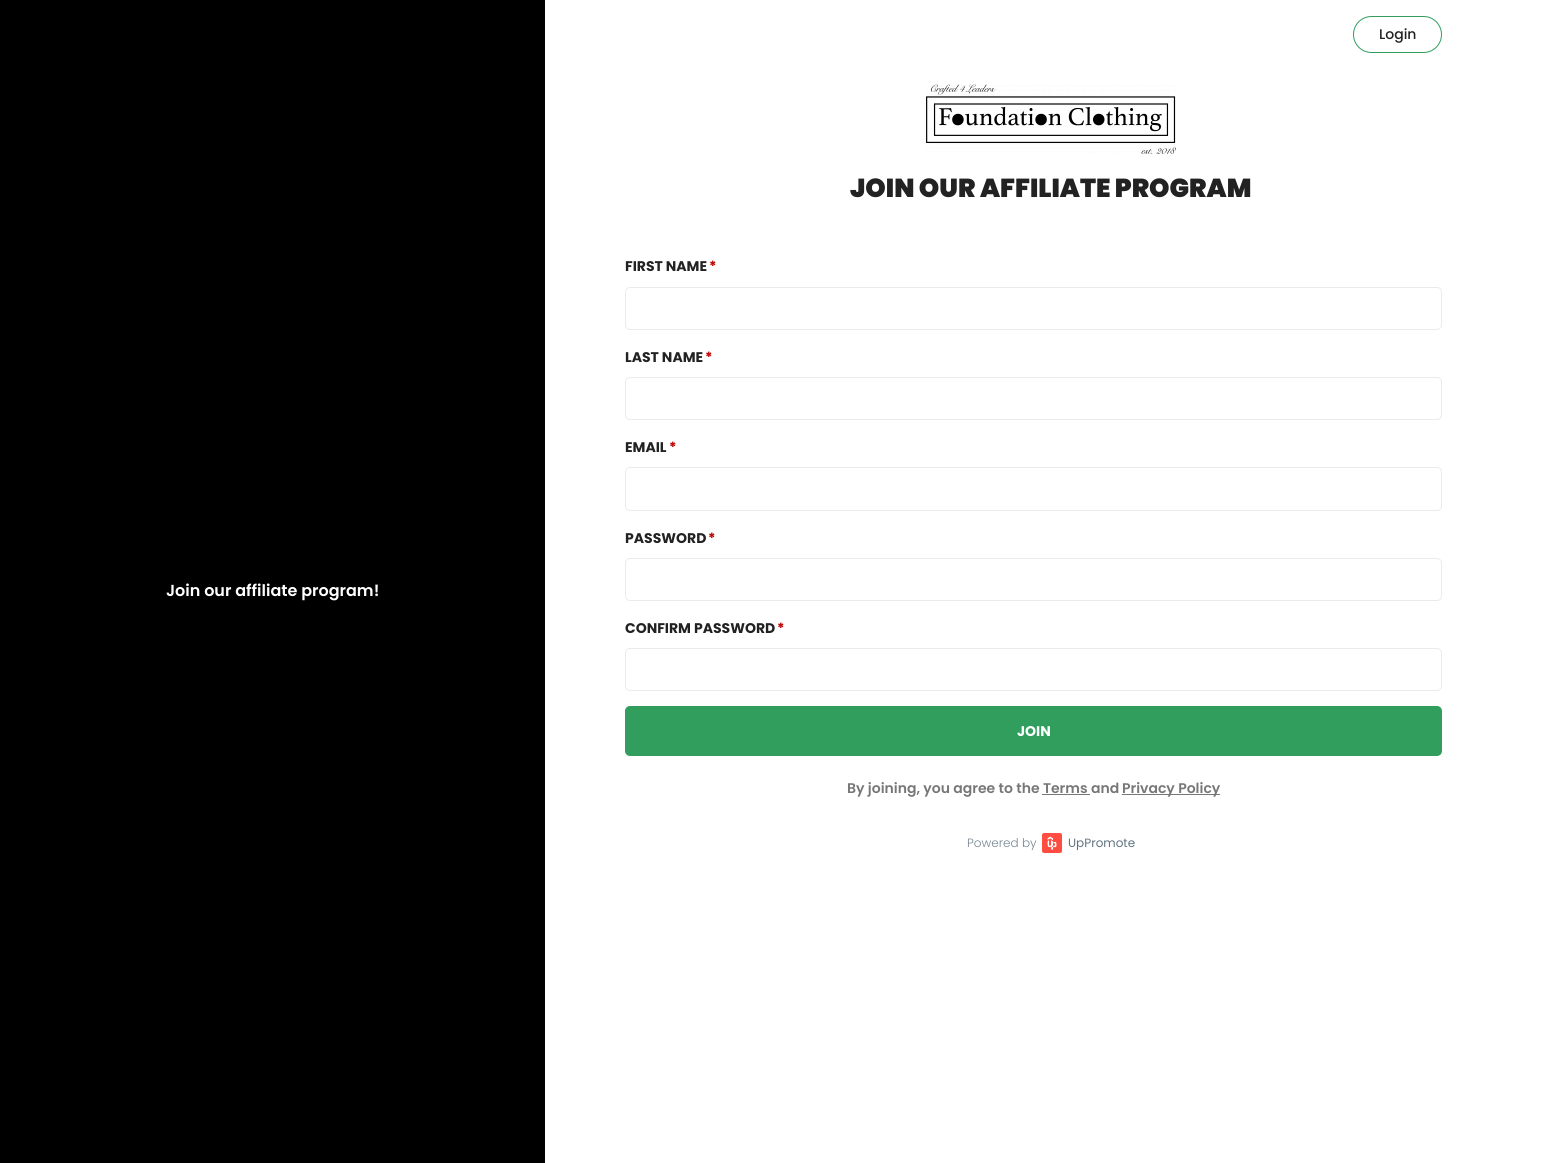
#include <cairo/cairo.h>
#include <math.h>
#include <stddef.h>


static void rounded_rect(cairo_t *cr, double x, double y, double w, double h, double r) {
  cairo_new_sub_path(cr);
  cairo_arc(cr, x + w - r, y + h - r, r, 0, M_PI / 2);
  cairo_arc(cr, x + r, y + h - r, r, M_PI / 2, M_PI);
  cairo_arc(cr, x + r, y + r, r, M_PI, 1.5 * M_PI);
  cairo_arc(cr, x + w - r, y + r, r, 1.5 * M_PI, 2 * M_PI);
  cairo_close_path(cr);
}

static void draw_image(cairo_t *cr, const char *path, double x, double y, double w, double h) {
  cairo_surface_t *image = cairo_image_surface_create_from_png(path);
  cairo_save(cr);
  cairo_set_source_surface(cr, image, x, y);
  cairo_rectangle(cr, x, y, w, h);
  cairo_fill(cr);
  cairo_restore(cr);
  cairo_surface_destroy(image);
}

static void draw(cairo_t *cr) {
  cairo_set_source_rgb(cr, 1, 1, 1);
  cairo_paint(cr);
  cairo_set_source_rgb(cr, 0, 0, 0);
  cairo_rectangle(cr, 0, 0, 545, 1163);
  cairo_fill(cr);
  rounded_rect(cr, 1353.5, 16.5, 88, 36, 18);
  cairo_set_source_rgb(cr, 50 / 255.0, 158 / 255.0, 94 / 255.0);
  cairo_set_line_width(cr, 1);
  cairo_stroke(cr);
  draw_image(cr, "images/1.png", 926, 84, 250, 70);
  rounded_rect(cr, 625.5, 287.5, 816, 42, 4.5);
  cairo_set_source_rgb(cr, 235 / 255.0, 235 / 255.0, 235 / 255.0);
  cairo_stroke(cr);
  rounded_rect(cr, 625.5, 377.5, 816, 42, 4.5);
  cairo_stroke(cr);
  rounded_rect(cr, 625.5, 467.5, 816, 43, 4.5);
  cairo_stroke(cr);
  rounded_rect(cr, 625.5, 558.5, 816, 42, 4.5);
  cairo_stroke(cr);
  rounded_rect(cr, 625.5, 648.5, 816, 42, 4.5);
  cairo_stroke(cr);
  cairo_set_source_rgb(cr, 50 / 255.0, 158 / 255.0, 94 / 255.0);
  rounded_rect(cr, 625, 706, 817, 50, 5);
  cairo_fill(cr);
  cairo_set_source_rgb(cr, 119 / 255.0, 119 / 255.0, 119 / 255.0);
  cairo_rectangle(cr, 1122, 794, 98, 1);
  cairo_fill(cr);
  cairo_rectangle(cr, 1042, 794, 48, 1);
  cairo_fill(cr);
  draw_image(cr, "images/2.png", 1042, 833, 20, 20);
  cairo_select_font_face(cr, "Poppins SemiBold", CAIRO_FONT_SLANT_NORMAL, CAIRO_FONT_WEIGHT_NORMAL);
  cairo_set_font_size(cr, 16);
  cairo_set_source_rgb(cr, 1, 1, 1);
  cairo_move_to(cr, 166, 596);
  cairo_show_text(cr, "Join our affiliate program!");
  cairo_select_font_face(cr, "Poppins Medium", CAIRO_FONT_SLANT_NORMAL, CAIRO_FONT_WEIGHT_NORMAL);
  cairo_set_font_size(cr, 14);
  cairo_set_source_rgb(cr, 34 / 255.0, 34 / 255.0, 34 / 255.0);
  cairo_move_to(cr, 1379, 39);
  cairo_show_text(cr, "Login");
  cairo_select_font_face(cr, "Poppins Black", CAIRO_FONT_SLANT_NORMAL, CAIRO_FONT_WEIGHT_NORMAL);
  cairo_set_font_size(cr, 26);
  cairo_move_to(cr, 850, 197);
  cairo_show_text(cr, "JOIN OUR AFFILIATE PROGRAM");
  cairo_select_font_face(cr, "Poppins", CAIRO_FONT_SLANT_NORMAL, CAIRO_FONT_WEIGHT_BOLD);
  cairo_set_font_size(cr, 14);
  cairo_move_to(cr, 625, 271);
  cairo_show_text(cr, "FIRST NAME");
  cairo_set_source_rgb(cr, 185 / 255.0, 0, 0);
  cairo_move_to(cr, 709, 271);
  cairo_show_text(cr, "*");
  cairo_set_source_rgb(cr, 34 / 255.0, 34 / 255.0, 34 / 255.0);
  cairo_move_to(cr, 625, 362);
  cairo_show_text(cr, "LAST NAME");
  cairo_set_source_rgb(cr, 185 / 255.0, 0, 0);
  cairo_move_to(cr, 705, 362);
  cairo_show_text(cr, "*");
  cairo_set_source_rgb(cr, 34 / 255.0, 34 / 255.0, 34 / 255.0);
  cairo_move_to(cr, 625, 452);
  cairo_show_text(cr, "EMAIL");
  cairo_set_source_rgb(cr, 185 / 255.0, 0, 0);
  cairo_move_to(cr, 669, 452);
  cairo_show_text(cr, "*");
  cairo_set_source_rgb(cr, 34 / 255.0, 34 / 255.0, 34 / 255.0);
  cairo_move_to(cr, 625, 543);
  cairo_show_text(cr, "PASSWORD");
  cairo_set_source_rgb(cr, 185 / 255.0, 0, 0);
  cairo_move_to(cr, 708, 543);
  cairo_show_text(cr, "*");
  cairo_set_source_rgb(cr, 34 / 255.0, 34 / 255.0, 34 / 255.0);
  cairo_move_to(cr, 625, 633);
  cairo_show_text(cr, "CONFIRM PASSWORD");
  cairo_set_source_rgb(cr, 185 / 255.0, 0, 0);
  cairo_move_to(cr, 777, 633);
  cairo_show_text(cr, "*");
  cairo_set_source_rgb(cr, 1, 1, 1);
  cairo_move_to(cr, 1017, 736);
  cairo_show_text(cr, "JOIN");
  cairo_select_font_face(cr, "Poppins SemiBold", CAIRO_FONT_SLANT_NORMAL, CAIRO_FONT_WEIGHT_NORMAL);
  cairo_set_source_rgb(cr, 119 / 255.0, 119 / 255.0, 119 / 255.0);
  cairo_move_to(cr, 847, 793);
  cairo_show_text(cr, "By joining, you agree to the Terms and");
  cairo_move_to(cr, 1122, 793);
  cairo_show_text(cr, "Privacy Policy");
  cairo_select_font_face(cr, "Poppins Light", CAIRO_FONT_SLANT_NORMAL, CAIRO_FONT_WEIGHT_NORMAL);
  cairo_set_font_size(cr, 12);
  cairo_set_source_rgb(cr, 117 / 255.0, 133 / 255.0, 145 / 255.0);
  cairo_move_to(cr, 967, 847);
  cairo_show_text(cr, "Powered by");
  cairo_select_font_face(cr, "Poppins", CAIRO_FONT_SLANT_NORMAL, CAIRO_FONT_WEIGHT_NORMAL);
  cairo_set_source_rgb(cr, 96 / 255.0, 115 / 255.0, 128 / 255.0);
  cairo_move_to(cr, 1068, 847);
  cairo_show_text(cr, "UpPromote");
}

int main(void) {
  cairo_surface_t *surface = cairo_image_surface_create(CAIRO_FORMAT_RGB24, 1557, 1163);
  cairo_t *cr = cairo_create(surface);
  cairo_font_options_t *options = cairo_font_options_create();
  cairo_font_options_set_hint_metrics(options, CAIRO_HINT_METRICS_OFF);
  cairo_font_options_set_hint_style(options, CAIRO_HINT_STYLE_NONE);
  cairo_set_font_options(cr, options);
  cairo_set_miter_limit(cr, 4);
  draw(cr);
  cairo_surface_write_to_png(surface, "out.png");
  cairo_font_options_destroy(options);
  cairo_destroy(cr);
  cairo_surface_destroy(surface);
  return 0;
}
